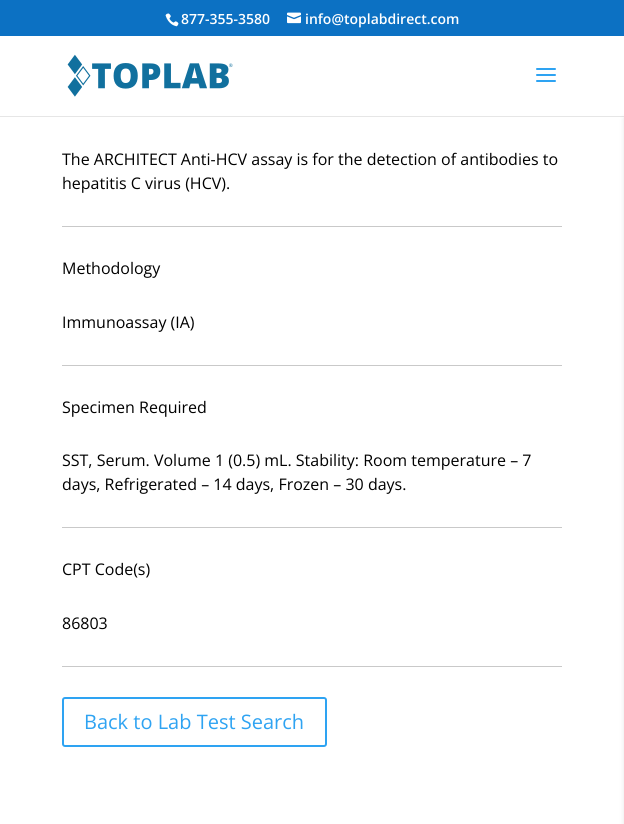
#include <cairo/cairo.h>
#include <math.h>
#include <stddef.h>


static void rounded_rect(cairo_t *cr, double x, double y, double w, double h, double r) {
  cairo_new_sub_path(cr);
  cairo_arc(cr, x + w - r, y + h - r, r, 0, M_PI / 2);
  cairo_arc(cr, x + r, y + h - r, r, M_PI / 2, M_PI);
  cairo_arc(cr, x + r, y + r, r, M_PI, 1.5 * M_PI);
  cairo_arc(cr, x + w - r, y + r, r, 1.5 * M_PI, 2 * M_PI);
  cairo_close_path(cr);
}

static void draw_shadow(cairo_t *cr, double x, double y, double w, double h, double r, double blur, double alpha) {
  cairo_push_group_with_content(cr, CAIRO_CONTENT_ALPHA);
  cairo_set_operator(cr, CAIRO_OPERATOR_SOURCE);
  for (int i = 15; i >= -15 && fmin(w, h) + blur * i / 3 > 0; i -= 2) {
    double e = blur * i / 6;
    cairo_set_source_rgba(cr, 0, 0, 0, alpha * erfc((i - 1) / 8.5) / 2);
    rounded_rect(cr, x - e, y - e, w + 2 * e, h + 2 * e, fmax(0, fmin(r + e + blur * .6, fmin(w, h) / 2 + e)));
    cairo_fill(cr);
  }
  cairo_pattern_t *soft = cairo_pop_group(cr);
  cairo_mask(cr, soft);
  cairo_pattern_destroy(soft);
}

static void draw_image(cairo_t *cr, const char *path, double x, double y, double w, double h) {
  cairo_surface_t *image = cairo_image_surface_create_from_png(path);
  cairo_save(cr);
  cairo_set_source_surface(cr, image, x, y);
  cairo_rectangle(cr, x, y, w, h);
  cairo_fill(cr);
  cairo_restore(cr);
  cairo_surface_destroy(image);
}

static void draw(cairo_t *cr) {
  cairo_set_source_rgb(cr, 1, 1, 1);
  cairo_paint(cr);
  cairo_set_source_rgb(cr, 12 / 255.0, 113 / 255.0, 195 / 255.0);
  cairo_rectangle(cr, 0, 0, 624, 36);
  cairo_fill(cr);
  draw_image(cr, "images/1.png", 165, 13, 14, 14);
  draw_image(cr, "images/2.png", 287, 12, 14, 12);
  cairo_set_source_rgb(cr, 230 / 255.0, 230 / 255.0, 230 / 255.0);
  cairo_rectangle(cr, 0, 116, 624, 1);
  cairo_fill(cr);
  draw_image(cr, "images/3.png", 67, 54, 166, 43);
  draw_image(cr, "images/4.png", 536, 68, 20, 14);
  cairo_set_source_rgb(cr, 0, 0, 0);
  draw_shadow(cr, 624, 118, 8, 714, 0, 2.5, 0.1);
  cairo_set_source_rgb(cr, 201 / 255.0, 201 / 255.0, 201 / 255.0);
  cairo_rectangle(cr, 62, 226, 500, 1);
  cairo_fill(cr);
  cairo_rectangle(cr, 62, 365, 500, 1);
  cairo_fill(cr);
  cairo_rectangle(cr, 62, 527, 500, 1);
  cairo_fill(cr);
  cairo_rectangle(cr, 62, 666, 500, 1);
  cairo_fill(cr);
  rounded_rect(cr, 63, 698, 263, 48, 2);
  cairo_set_source_rgb(cr, 46 / 255.0, 163 / 255.0, 242 / 255.0);
  cairo_stroke(cr);
  cairo_select_font_face(cr, "Open Sans SemiBold", CAIRO_FONT_SLANT_NORMAL, CAIRO_FONT_WEIGHT_NORMAL);
  cairo_set_font_size(cr, 14);
  cairo_set_source_rgb(cr, 1, 1, 1);
  cairo_move_to(cr, 181, 24);
  cairo_show_text(cr, "877-355-3580");
  cairo_move_to(cr, 305, 24);
  cairo_show_text(cr, "info@toplabdirect.com");
  cairo_select_font_face(cr, "Open Sans", CAIRO_FONT_SLANT_NORMAL, CAIRO_FONT_WEIGHT_NORMAL);
  cairo_set_font_size(cr, 16);
  cairo_set_source_rgb(cr, 0, 0, 0);
  cairo_move_to(cr, 62, 165);
  cairo_show_text(cr, "The ARCHITECT Anti-HCV assay is for the detection of antibodies to");
  cairo_move_to(cr, 62, 189);
  cairo_show_text(cr, "hepatitis C virus (HCV).");
  cairo_move_to(cr, 62, 274);
  cairo_show_text(cr, "Methodology");
  cairo_move_to(cr, 62, 328);
  cairo_show_text(cr, "Immunoassay (IA)");
  cairo_move_to(cr, 62, 413);
  cairo_show_text(cr, "Specimen Required");
  cairo_move_to(cr, 62, 466);
  cairo_show_text(cr, "SST, Serum. Volume 1 (0.5) mL. Stability: Room temperature – 7");
  cairo_move_to(cr, 62, 490);
  cairo_show_text(cr, "days, Refrigerated – 14 days, Frozen – 30 days.");
  cairo_move_to(cr, 62, 575);
  cairo_show_text(cr, "CPT Code(s)");
  cairo_move_to(cr, 62, 629);
  cairo_show_text(cr, "86803");
  cairo_set_font_size(cr, 20);
  cairo_set_source_rgb(cr, 46 / 255.0, 163 / 255.0, 242 / 255.0);
  cairo_move_to(cr, 84, 729);
  cairo_show_text(cr, "Back to Lab Test Search");
}

int main(void) {
  cairo_surface_t *surface = cairo_image_surface_create(CAIRO_FORMAT_RGB24, 624, 824);
  cairo_t *cr = cairo_create(surface);
  cairo_font_options_t *options = cairo_font_options_create();
  cairo_font_options_set_hint_metrics(options, CAIRO_HINT_METRICS_OFF);
  cairo_font_options_set_hint_style(options, CAIRO_HINT_STYLE_NONE);
  cairo_set_font_options(cr, options);
  cairo_set_miter_limit(cr, 4);
  draw(cr);
  cairo_surface_write_to_png(surface, "out.png");
  cairo_font_options_destroy(options);
  cairo_destroy(cr);
  cairo_surface_destroy(surface);
  return 0;
}
